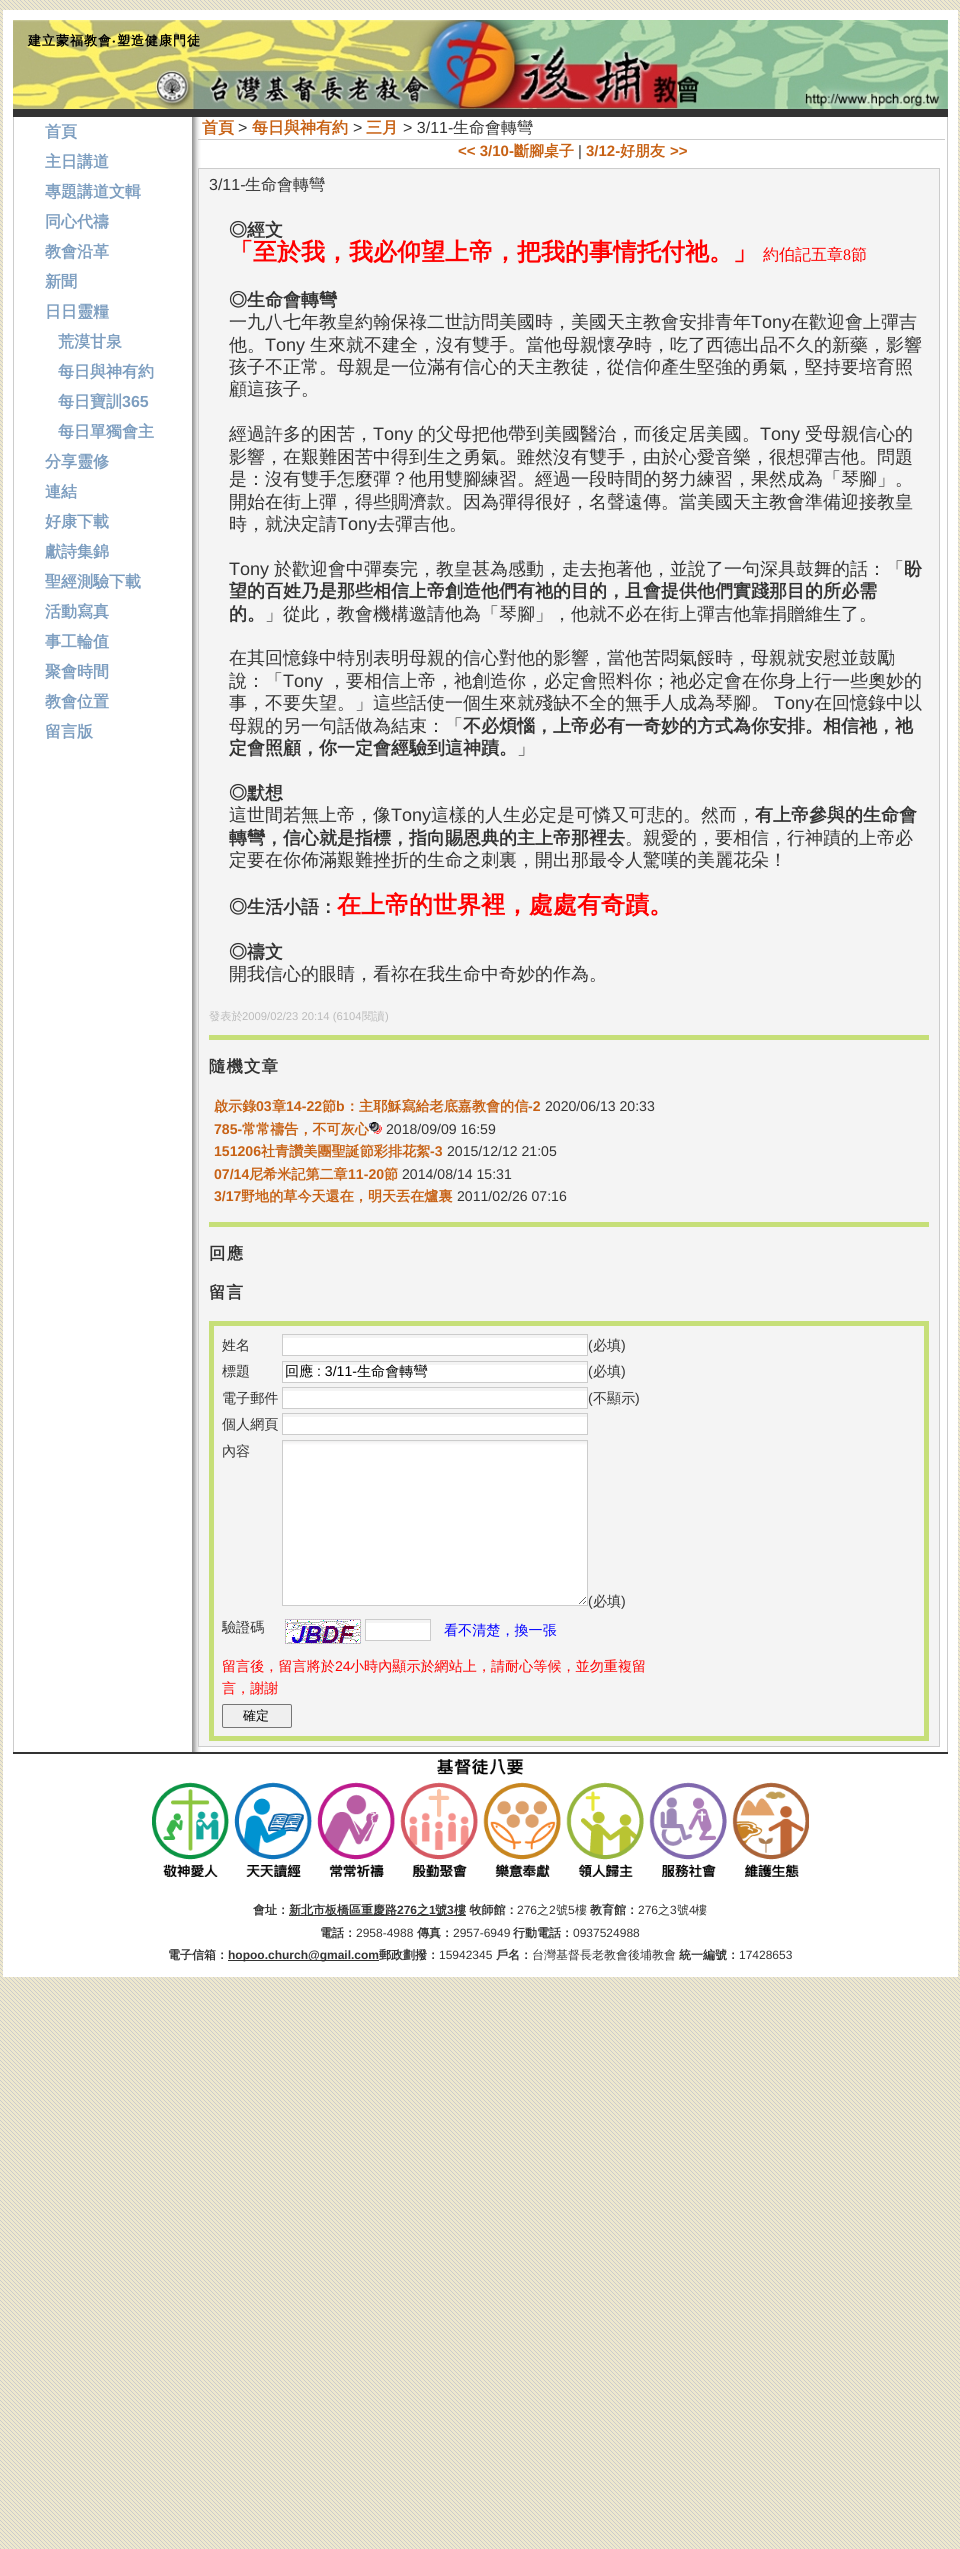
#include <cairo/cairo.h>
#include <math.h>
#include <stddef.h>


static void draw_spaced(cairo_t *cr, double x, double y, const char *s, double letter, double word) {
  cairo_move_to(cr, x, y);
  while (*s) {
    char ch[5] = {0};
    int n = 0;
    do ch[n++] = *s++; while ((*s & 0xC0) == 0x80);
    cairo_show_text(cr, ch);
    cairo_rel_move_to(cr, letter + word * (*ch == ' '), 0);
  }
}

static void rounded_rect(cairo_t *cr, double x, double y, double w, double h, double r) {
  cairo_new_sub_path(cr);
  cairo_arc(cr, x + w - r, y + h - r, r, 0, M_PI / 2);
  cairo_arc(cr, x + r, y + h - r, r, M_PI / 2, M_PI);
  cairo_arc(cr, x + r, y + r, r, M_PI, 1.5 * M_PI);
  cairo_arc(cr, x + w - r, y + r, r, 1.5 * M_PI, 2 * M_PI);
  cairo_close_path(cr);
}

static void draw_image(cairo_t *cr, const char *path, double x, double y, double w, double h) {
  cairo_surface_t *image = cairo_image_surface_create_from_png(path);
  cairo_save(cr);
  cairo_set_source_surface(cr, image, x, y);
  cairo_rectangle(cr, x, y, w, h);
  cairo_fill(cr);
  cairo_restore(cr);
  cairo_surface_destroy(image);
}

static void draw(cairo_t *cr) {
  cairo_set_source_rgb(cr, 1, 1, 1);
  cairo_paint(cr);
  draw_image(cr, "images/1.png", 0, 0, 960, 2549);
  draw_image(cr, "images/2.png", 13, 117, 935, 1635);
  cairo_rectangle(cr, 8, 15, 945, 1957);
  cairo_set_source_rgb(cr, 1, 1, 1);
  cairo_set_line_width(cr, 10);
  cairo_stroke(cr);
  draw_image(cr, "images/3.png", 13, 20, 935, 89);
  cairo_set_source_rgb(cr, 51 / 255.0, 51 / 255.0, 51 / 255.0);
  cairo_rectangle(cr, 13, 109, 935, 8);
  cairo_fill(cr);
  cairo_set_source_rgb(cr, 204 / 255.0, 204 / 255.0, 204 / 255.0);
  cairo_rectangle(cr, 198, 139, 747, 1);
  cairo_fill(cr);
  cairo_set_source_rgb(cr, 244 / 255.0, 244 / 255.0, 244 / 255.0);
  cairo_rectangle(cr, 198.5, 168.5, 741, 1578);
  cairo_fill_preserve(cr);
  cairo_set_source_rgb(cr, 204 / 255.0, 204 / 255.0, 204 / 255.0);
  cairo_set_line_width(cr, 1);
  cairo_stroke(cr);
  cairo_set_source_rgb(cr, 198 / 255.0, 223 / 255.0, 120 / 255.0);
  cairo_rectangle(cr, 209, 1035, 720, 5);
  cairo_fill(cr);
  draw_image(cr, "images/4.png", 369, 1122, 13, 12);
  cairo_rectangle(cr, 209, 1222, 720, 5);
  cairo_fill(cr);
  cairo_rectangle(cr, 211.5, 1323.5, 715, 415);
  cairo_set_line_width(cr, 5);
  cairo_stroke(cr);
  cairo_set_source_rgb(cr, 1, 1, 1);
  cairo_rectangle(cr, 283, 1338, 304, 17);
  cairo_fill(cr);
  cairo_rectangle(cr, 282.5, 1334.5, 305, 21);
  cairo_set_source_rgb(cr, 204 / 255.0, 204 / 255.0, 204 / 255.0);
  cairo_set_line_width(cr, 1);
  cairo_stroke(cr);
  cairo_set_source_rgb(cr, 1, 1, 1);
  cairo_rectangle(cr, 283, 1365, 304, 17);
  cairo_fill(cr);
  cairo_rectangle(cr, 282.5, 1361.5, 305, 21);
  cairo_set_source_rgb(cr, 204 / 255.0, 204 / 255.0, 204 / 255.0);
  cairo_stroke(cr);
  cairo_set_source_rgb(cr, 1, 1, 1);
  cairo_rectangle(cr, 283, 1391, 304, 17);
  cairo_fill(cr);
  cairo_rectangle(cr, 282.5, 1387.5, 305, 21);
  cairo_set_source_rgb(cr, 204 / 255.0, 204 / 255.0, 204 / 255.0);
  cairo_stroke(cr);
  cairo_set_source_rgb(cr, 1, 1, 1);
  cairo_rectangle(cr, 283, 1417, 304, 17);
  cairo_fill(cr);
  cairo_rectangle(cr, 282.5, 1413.5, 305, 21);
  cairo_set_source_rgb(cr, 204 / 255.0, 204 / 255.0, 204 / 255.0);
  cairo_stroke(cr);
  cairo_set_source_rgb(cr, 1, 1, 1);
  cairo_rectangle(cr, 283, 1466, 304, 139);
  cairo_fill(cr);
  draw_image(cr, "images/5.png", 283, 1441, 304, 163);
  cairo_rectangle(cr, 282.5, 1440.5, 305, 165);
  cairo_set_source_rgb(cr, 204 / 255.0, 204 / 255.0, 204 / 255.0);
  cairo_stroke(cr);
  draw_image(cr, "images/6.png", 285, 1619, 76, 25);
  cairo_set_source_rgb(cr, 1, 1, 1);
  cairo_rectangle(cr, 366, 1623, 64, 17);
  cairo_fill(cr);
  cairo_rectangle(cr, 365.5, 1619.5, 65, 21);
  cairo_set_source_rgb(cr, 204 / 255.0, 204 / 255.0, 204 / 255.0);
  cairo_stroke(cr);
  cairo_set_source_rgb(cr, 239 / 255.0, 239 / 255.0, 239 / 255.0);
  rounded_rect(cr, 222.5, 1704.5, 69, 23, 1.5);
  cairo_fill_preserve(cr);
  cairo_set_source_rgb(cr, 118 / 255.0, 118 / 255.0, 118 / 255.0);
  cairo_stroke(cr);
  cairo_set_source_rgb(cr, 1, 1, 1);
  cairo_rectangle(cr, 13, 1754, 935, 213);
  cairo_fill(cr);
  cairo_set_source_rgb(cr, 51 / 255.0, 51 / 255.0, 51 / 255.0);
  cairo_rectangle(cr, 13, 1752, 935, 2);
  cairo_fill(cr);
  draw_image(cr, "images/7.png", 152, 1759, 657, 118);
  cairo_rectangle(cr, 289, 1915, 177, 1);
  cairo_fill(cr);
  cairo_rectangle(cr, 228, 1960, 151, 1);
  cairo_fill(cr);
  cairo_select_font_face(cr, "WenQuanYi Zen Hei", CAIRO_FONT_SLANT_NORMAL, CAIRO_FONT_WEIGHT_BOLD);
  cairo_set_font_size(cr, 13);
  cairo_set_source_rgb(cr, 0, 0, 0);
  draw_spaced(cr, 28, 45, "建立蒙福教會 塑造健康門徒", 1, 0);
  cairo_select_font_face(cr, "Noto Sans", CAIRO_FONT_SLANT_NORMAL, CAIRO_FONT_WEIGHT_BOLD);
  draw_spaced(cr, 112, 45, "‧", 1, 0);
  cairo_select_font_face(cr, "WenQuanYi Zen Hei", CAIRO_FONT_SLANT_NORMAL, CAIRO_FONT_WEIGHT_BOLD);
  cairo_set_font_size(cr, 16);
  cairo_set_source_rgb(cr, 125 / 255.0, 158 / 255.0, 192 / 255.0);
  cairo_move_to(cr, 45, 137);
  cairo_show_text(cr, "首頁");
  cairo_move_to(cr, 45, 167);
  cairo_show_text(cr, "主日講道");
  cairo_move_to(cr, 45, 197);
  cairo_show_text(cr, "專題講道文輯");
  cairo_move_to(cr, 45, 227);
  cairo_show_text(cr, "同心代禱");
  cairo_move_to(cr, 45, 257);
  cairo_show_text(cr, "教會沿革");
  cairo_move_to(cr, 45, 287);
  cairo_show_text(cr, "新聞");
  cairo_move_to(cr, 45, 317);
  cairo_show_text(cr, "日日靈糧");
  cairo_move_to(cr, 58, 347);
  cairo_show_text(cr, "荒漠甘泉");
  cairo_move_to(cr, 58, 377);
  cairo_show_text(cr, "每日與神有約");
  cairo_move_to(cr, 58, 407);
  cairo_show_text(cr, "每日寶訓");
  cairo_select_font_face(cr, "Liberation Sans", CAIRO_FONT_SLANT_NORMAL, CAIRO_FONT_WEIGHT_BOLD);
  cairo_move_to(cr, 122, 407);
  cairo_show_text(cr, "365");
  cairo_select_font_face(cr, "WenQuanYi Zen Hei", CAIRO_FONT_SLANT_NORMAL, CAIRO_FONT_WEIGHT_BOLD);
  cairo_move_to(cr, 58, 437);
  cairo_show_text(cr, "每日單獨會主");
  cairo_move_to(cr, 45, 467);
  cairo_show_text(cr, "分享靈修");
  cairo_move_to(cr, 45, 497);
  cairo_show_text(cr, "連結");
  cairo_move_to(cr, 45, 527);
  cairo_show_text(cr, "好康下載");
  cairo_move_to(cr, 45, 557);
  cairo_show_text(cr, "獻詩集錦");
  cairo_move_to(cr, 45, 587);
  cairo_show_text(cr, "聖經測驗下載");
  cairo_move_to(cr, 45, 617);
  cairo_show_text(cr, "活動寫真");
  cairo_move_to(cr, 45, 647);
  cairo_show_text(cr, "事工輪值");
  cairo_move_to(cr, 45, 677);
  cairo_show_text(cr, "聚會時間");
  cairo_move_to(cr, 45, 707);
  cairo_show_text(cr, "教會位置");
  cairo_move_to(cr, 45, 737);
  cairo_show_text(cr, "留言版");
  cairo_set_source_rgb(cr, 199 / 255.0, 97 / 255.0, 20 / 255.0);
  cairo_move_to(cr, 202, 133);
  cairo_show_text(cr, "首頁");
  cairo_select_font_face(cr, "Liberation Sans", CAIRO_FONT_SLANT_NORMAL, CAIRO_FONT_WEIGHT_NORMAL);
  cairo_set_source_rgb(cr, 51 / 255.0, 51 / 255.0, 51 / 255.0);
  cairo_move_to(cr, 238, 133);
  cairo_show_text(cr, ">");
  cairo_select_font_face(cr, "WenQuanYi Zen Hei", CAIRO_FONT_SLANT_NORMAL, CAIRO_FONT_WEIGHT_BOLD);
  cairo_set_source_rgb(cr, 199 / 255.0, 97 / 255.0, 20 / 255.0);
  cairo_move_to(cr, 252, 133);
  cairo_show_text(cr, "每日與神有約");
  cairo_select_font_face(cr, "Liberation Sans", CAIRO_FONT_SLANT_NORMAL, CAIRO_FONT_WEIGHT_NORMAL);
  cairo_set_source_rgb(cr, 51 / 255.0, 51 / 255.0, 51 / 255.0);
  cairo_move_to(cr, 353, 133);
  cairo_show_text(cr, ">");
  cairo_select_font_face(cr, "WenQuanYi Zen Hei", CAIRO_FONT_SLANT_NORMAL, CAIRO_FONT_WEIGHT_BOLD);
  cairo_set_source_rgb(cr, 199 / 255.0, 97 / 255.0, 20 / 255.0);
  cairo_move_to(cr, 366, 133);
  cairo_show_text(cr, "三月");
  cairo_select_font_face(cr, "Liberation Sans", CAIRO_FONT_SLANT_NORMAL, CAIRO_FONT_WEIGHT_NORMAL);
  cairo_set_source_rgb(cr, 51 / 255.0, 51 / 255.0, 51 / 255.0);
  cairo_move_to(cr, 403, 133);
  cairo_show_text(cr, "> 3/11-");
  cairo_select_font_face(cr, "WenQuanYi Zen Hei Medium", CAIRO_FONT_SLANT_NORMAL, CAIRO_FONT_WEIGHT_NORMAL);
  cairo_move_to(cr, 453, 133);
  cairo_show_text(cr, "生命會轉彎");
  cairo_select_font_face(cr, "Liberation Sans", CAIRO_FONT_SLANT_NORMAL, CAIRO_FONT_WEIGHT_BOLD);
  cairo_set_font_size(cr, 15);
  cairo_set_source_rgb(cr, 199 / 255.0, 97 / 255.0, 20 / 255.0);
  cairo_move_to(cr, 458, 156);
  cairo_show_text(cr, "<< 3/10-");
  cairo_select_font_face(cr, "WenQuanYi Zen Hei", CAIRO_FONT_SLANT_NORMAL, CAIRO_FONT_WEIGHT_BOLD);
  cairo_move_to(cr, 514, 156);
  cairo_show_text(cr, "斷腳桌子");
  cairo_select_font_face(cr, "Liberation Sans", CAIRO_FONT_SLANT_NORMAL, CAIRO_FONT_WEIGHT_NORMAL);
  cairo_set_source_rgb(cr, 51 / 255.0, 51 / 255.0, 51 / 255.0);
  cairo_move_to(cr, 578, 156);
  cairo_show_text(cr, "|");
  cairo_select_font_face(cr, "Liberation Sans", CAIRO_FONT_SLANT_NORMAL, CAIRO_FONT_WEIGHT_BOLD);
  cairo_set_source_rgb(cr, 199 / 255.0, 97 / 255.0, 20 / 255.0);
  cairo_move_to(cr, 586, 156);
  cairo_show_text(cr, "3/12-");
  cairo_select_font_face(cr, "WenQuanYi Zen Hei", CAIRO_FONT_SLANT_NORMAL, CAIRO_FONT_WEIGHT_BOLD);
  cairo_move_to(cr, 620, 156);
  cairo_show_text(cr, "好朋友");
  cairo_select_font_face(cr, "Liberation Sans", CAIRO_FONT_SLANT_NORMAL, CAIRO_FONT_WEIGHT_BOLD);
  cairo_move_to(cr, 670, 156);
  cairo_show_text(cr, ">>");
  cairo_select_font_face(cr, "Liberation Sans", CAIRO_FONT_SLANT_NORMAL, CAIRO_FONT_WEIGHT_NORMAL);
  cairo_set_font_size(cr, 16);
  cairo_set_source_rgb(cr, 51 / 255.0, 51 / 255.0, 51 / 255.0);
  cairo_move_to(cr, 209, 190);
  cairo_show_text(cr, "3/11-");
  cairo_select_font_face(cr, "WenQuanYi Zen Hei Medium", CAIRO_FONT_SLANT_NORMAL, CAIRO_FONT_WEIGHT_NORMAL);
  cairo_move_to(cr, 245, 190);
  cairo_show_text(cr, "生命會轉彎");
  cairo_select_font_face(cr, "WenQuanYi Zen Hei", CAIRO_FONT_SLANT_NORMAL, CAIRO_FONT_WEIGHT_BOLD);
  cairo_set_font_size(cr, 18);
  cairo_move_to(cr, 229, 236);
  cairo_show_text(cr, "◎經文");
  cairo_set_font_size(cr, 24);
  cairo_set_source_rgb(cr, 1, 0, 0);
  cairo_move_to(cr, 229, 260);
  cairo_show_text(cr, "「至於我，我必仰望上帝，把我的事情托付祂。」");
  cairo_select_font_face(cr, "WenQuanYi Zen Hei Medium", CAIRO_FONT_SLANT_NORMAL, CAIRO_FONT_WEIGHT_NORMAL);
  cairo_set_font_size(cr, 16);
  cairo_move_to(cr, 763, 260);
  cairo_show_text(cr, "約伯記五章");
  cairo_select_font_face(cr, "Liberation Serif", CAIRO_FONT_SLANT_NORMAL, CAIRO_FONT_WEIGHT_NORMAL);
  cairo_move_to(cr, 843, 260);
  cairo_show_text(cr, "8");
  cairo_select_font_face(cr, "WenQuanYi Zen Hei Medium", CAIRO_FONT_SLANT_NORMAL, CAIRO_FONT_WEIGHT_NORMAL);
  cairo_move_to(cr, 851, 260);
  cairo_show_text(cr, "節");
  cairo_select_font_face(cr, "WenQuanYi Zen Hei", CAIRO_FONT_SLANT_NORMAL, CAIRO_FONT_WEIGHT_BOLD);
  cairo_set_font_size(cr, 18);
  cairo_set_source_rgb(cr, 51 / 255.0, 51 / 255.0, 51 / 255.0);
  cairo_move_to(cr, 229, 306);
  cairo_show_text(cr, "◎生命會轉彎");
  cairo_select_font_face(cr, "WenQuanYi Zen Hei Medium", CAIRO_FONT_SLANT_NORMAL, CAIRO_FONT_WEIGHT_NORMAL);
  cairo_move_to(cr, 229, 328);
  cairo_show_text(cr, "一九八七年教皇約翰保祿二世訪問美國時，美國天主教會安排青年");
  cairo_select_font_face(cr, "Liberation Sans", CAIRO_FONT_SLANT_NORMAL, CAIRO_FONT_WEIGHT_NORMAL);
  cairo_move_to(cr, 751, 328);
  cairo_show_text(cr, "Tony");
  cairo_select_font_face(cr, "WenQuanYi Zen Hei Medium", CAIRO_FONT_SLANT_NORMAL, CAIRO_FONT_WEIGHT_NORMAL);
  cairo_move_to(cr, 791, 328);
  cairo_show_text(cr, "在歡迎會上彈吉");
  cairo_move_to(cr, 229, 351);
  cairo_show_text(cr, "他。");
  cairo_select_font_face(cr, "Liberation Sans", CAIRO_FONT_SLANT_NORMAL, CAIRO_FONT_WEIGHT_NORMAL);
  cairo_move_to(cr, 265, 351);
  cairo_show_text(cr, "Tony");
  cairo_select_font_face(cr, "WenQuanYi Zen Hei Medium", CAIRO_FONT_SLANT_NORMAL, CAIRO_FONT_WEIGHT_NORMAL);
  cairo_move_to(cr, 310, 351);
  cairo_show_text(cr, "生來就不建全，沒有雙手。當他母親懷孕時，吃了西德出品不久的新藥，影響");
  cairo_move_to(cr, 229, 373);
  cairo_show_text(cr, "孩子不正常。母親是一位滿有信心的天主教徒，從信仰產生堅強的勇氣，堅持要培育照");
  cairo_move_to(cr, 229, 395);
  cairo_show_text(cr, "顧這孩子。");
  cairo_move_to(cr, 229, 440);
  cairo_show_text(cr, "經過許多的困苦，");
  cairo_select_font_face(cr, "Liberation Sans", CAIRO_FONT_SLANT_NORMAL, CAIRO_FONT_WEIGHT_NORMAL);
  cairo_move_to(cr, 373, 440);
  cairo_show_text(cr, "Tony");
  cairo_select_font_face(cr, "WenQuanYi Zen Hei Medium", CAIRO_FONT_SLANT_NORMAL, CAIRO_FONT_WEIGHT_NORMAL);
  cairo_move_to(cr, 418, 440);
  cairo_show_text(cr, "的父母把他帶到美國醫治，而後定居美國。");
  cairo_select_font_face(cr, "Liberation Sans", CAIRO_FONT_SLANT_NORMAL, CAIRO_FONT_WEIGHT_NORMAL);
  cairo_move_to(cr, 760, 440);
  cairo_show_text(cr, "Tony");
  cairo_select_font_face(cr, "WenQuanYi Zen Hei Medium", CAIRO_FONT_SLANT_NORMAL, CAIRO_FONT_WEIGHT_NORMAL);
  cairo_move_to(cr, 805, 440);
  cairo_show_text(cr, "受母親信心的");
  cairo_move_to(cr, 229, 463);
  cairo_show_text(cr, "影響，在艱難困苦中得到生之勇氣。雖然沒有雙手，由於心愛音樂，很想彈吉他。問題");
  cairo_move_to(cr, 229, 485);
  cairo_show_text(cr, "是：沒有雙手怎麼彈？他用雙腳練習。經過一段時間的努力練習，果然成為「琴腳」。");
  cairo_move_to(cr, 229, 508);
  cairo_show_text(cr, "開始在街上彈，得些賙濟款。因為彈得很好，名聲遠傳。當美國天主教會準備迎接教皇");
  cairo_move_to(cr, 229, 530);
  cairo_show_text(cr, "時，就決定請");
  cairo_select_font_face(cr, "Liberation Sans", CAIRO_FONT_SLANT_NORMAL, CAIRO_FONT_WEIGHT_NORMAL);
  cairo_move_to(cr, 337, 530);
  cairo_show_text(cr, "Tony");
  cairo_select_font_face(cr, "WenQuanYi Zen Hei Medium", CAIRO_FONT_SLANT_NORMAL, CAIRO_FONT_WEIGHT_NORMAL);
  cairo_move_to(cr, 377, 530);
  cairo_show_text(cr, "去彈吉他。");
  cairo_select_font_face(cr, "Liberation Sans", CAIRO_FONT_SLANT_NORMAL, CAIRO_FONT_WEIGHT_NORMAL);
  cairo_move_to(cr, 229, 575);
  cairo_show_text(cr, "Tony");
  cairo_select_font_face(cr, "WenQuanYi Zen Hei Medium", CAIRO_FONT_SLANT_NORMAL, CAIRO_FONT_WEIGHT_NORMAL);
  cairo_move_to(cr, 274, 575);
  cairo_show_text(cr, "於歡迎會中彈奏完，教皇甚為感動，走去抱著他，並說了一句深具鼓舞的話：「");
  cairo_select_font_face(cr, "WenQuanYi Zen Hei", CAIRO_FONT_SLANT_NORMAL, CAIRO_FONT_WEIGHT_BOLD);
  cairo_move_to(cr, 904, 575);
  cairo_show_text(cr, "盼");
  cairo_move_to(cr, 229, 597);
  cairo_show_text(cr, "望的百姓乃是那些相信上帝創造他們有祂的目的，且會提供他們實踐那目的所必需");
  cairo_move_to(cr, 229, 620);
  cairo_show_text(cr, "的。");
  cairo_select_font_face(cr, "WenQuanYi Zen Hei Medium", CAIRO_FONT_SLANT_NORMAL, CAIRO_FONT_WEIGHT_NORMAL);
  cairo_move_to(cr, 265, 620);
  cairo_show_text(cr, "」從此，教會機構邀請他為「琴腳」，他就不必在街上彈吉他靠捐贈維生了。");
  cairo_move_to(cr, 229, 664);
  cairo_show_text(cr, "在其回憶錄中特別表明母親的信心對他的影響，當他苦悶氣餒時，母親就安慰並鼓勵");
  cairo_move_to(cr, 229, 687);
  cairo_show_text(cr, "說：「");
  cairo_select_font_face(cr, "Liberation Sans", CAIRO_FONT_SLANT_NORMAL, CAIRO_FONT_WEIGHT_NORMAL);
  cairo_move_to(cr, 283, 687);
  cairo_show_text(cr, "Tony");
  cairo_select_font_face(cr, "WenQuanYi Zen Hei Medium", CAIRO_FONT_SLANT_NORMAL, CAIRO_FONT_WEIGHT_NORMAL);
  cairo_move_to(cr, 328, 687);
  cairo_show_text(cr, "，要相信上帝，祂創造你，必定會照料你；祂必定會在你身上行一些奧妙的");
  cairo_move_to(cr, 229, 709);
  cairo_show_text(cr, "事，不要失望。」這些話使一個生來就殘缺不全的無手人成為琴腳。");
  cairo_select_font_face(cr, "Liberation Sans", CAIRO_FONT_SLANT_NORMAL, CAIRO_FONT_WEIGHT_NORMAL);
  cairo_move_to(cr, 774, 709);
  cairo_show_text(cr, "Tony");
  cairo_select_font_face(cr, "WenQuanYi Zen Hei Medium", CAIRO_FONT_SLANT_NORMAL, CAIRO_FONT_WEIGHT_NORMAL);
  cairo_move_to(cr, 814, 709);
  cairo_show_text(cr, "在回憶錄中以");
  cairo_move_to(cr, 229, 732);
  cairo_show_text(cr, "母親的另一句話做為結束：「");
  cairo_select_font_face(cr, "WenQuanYi Zen Hei", CAIRO_FONT_SLANT_NORMAL, CAIRO_FONT_WEIGHT_BOLD);
  cairo_move_to(cr, 463, 732);
  cairo_show_text(cr, "不必煩惱，上帝必有一奇妙的方式為你安排。相信祂，祂");
  cairo_move_to(cr, 229, 754);
  cairo_show_text(cr, "定會照顧，你一定會經驗到這神蹟。");
  cairo_select_font_face(cr, "WenQuanYi Zen Hei Medium", CAIRO_FONT_SLANT_NORMAL, CAIRO_FONT_WEIGHT_NORMAL);
  cairo_move_to(cr, 517, 754);
  cairo_show_text(cr, "」");
  cairo_select_font_face(cr, "WenQuanYi Zen Hei", CAIRO_FONT_SLANT_NORMAL, CAIRO_FONT_WEIGHT_BOLD);
  cairo_move_to(cr, 229, 799);
  cairo_show_text(cr, "◎默想");
  cairo_select_font_face(cr, "WenQuanYi Zen Hei Medium", CAIRO_FONT_SLANT_NORMAL, CAIRO_FONT_WEIGHT_NORMAL);
  cairo_move_to(cr, 229, 821);
  cairo_show_text(cr, "這世間若無上帝，像");
  cairo_select_font_face(cr, "Liberation Sans", CAIRO_FONT_SLANT_NORMAL, CAIRO_FONT_WEIGHT_NORMAL);
  cairo_move_to(cr, 391, 821);
  cairo_show_text(cr, "Tony");
  cairo_select_font_face(cr, "WenQuanYi Zen Hei Medium", CAIRO_FONT_SLANT_NORMAL, CAIRO_FONT_WEIGHT_NORMAL);
  cairo_move_to(cr, 431, 821);
  cairo_show_text(cr, "這樣的人生必定是可憐又可悲的。然而，");
  cairo_select_font_face(cr, "WenQuanYi Zen Hei", CAIRO_FONT_SLANT_NORMAL, CAIRO_FONT_WEIGHT_BOLD);
  cairo_move_to(cr, 755, 821);
  cairo_show_text(cr, "有上帝參與的生命會");
  cairo_move_to(cr, 229, 844);
  cairo_show_text(cr, "轉彎，信心就是指標，指向賜恩典的主上帝那裡去");
  cairo_select_font_face(cr, "WenQuanYi Zen Hei Medium", CAIRO_FONT_SLANT_NORMAL, CAIRO_FONT_WEIGHT_NORMAL);
  cairo_move_to(cr, 625, 844);
  cairo_show_text(cr, "。親愛的，要相信，行神蹟的上帝必");
  cairo_move_to(cr, 229, 866);
  cairo_show_text(cr, "定要在你佈滿艱難挫折的生命之刺裏，開出那最令人驚嘆的美麗花朵！");
  cairo_select_font_face(cr, "WenQuanYi Zen Hei", CAIRO_FONT_SLANT_NORMAL, CAIRO_FONT_WEIGHT_BOLD);
  cairo_move_to(cr, 229, 913);
  cairo_show_text(cr, "◎生活小語：");
  cairo_set_font_size(cr, 24);
  cairo_set_source_rgb(cr, 1, 0, 0);
  cairo_move_to(cr, 337, 913);
  cairo_show_text(cr, "在上帝的世界裡，處處有奇蹟。");
  cairo_set_font_size(cr, 18);
  cairo_set_source_rgb(cr, 51 / 255.0, 51 / 255.0, 51 / 255.0);
  cairo_move_to(cr, 229, 958);
  cairo_show_text(cr, "◎禱文");
  cairo_select_font_face(cr, "WenQuanYi Zen Hei Medium", CAIRO_FONT_SLANT_NORMAL, CAIRO_FONT_WEIGHT_NORMAL);
  cairo_move_to(cr, 229, 980);
  cairo_show_text(cr, "開我信心的眼睛，看祢在我生命中奇妙的作為。");
  cairo_set_font_size(cr, 11.25);
  cairo_set_source_rgb(cr, 187 / 255.0, 187 / 255.0, 187 / 255.0);
  cairo_move_to(cr, 209, 1020);
  cairo_show_text(cr, "發表於");
  cairo_select_font_face(cr, "Liberation Sans", CAIRO_FONT_SLANT_NORMAL, CAIRO_FONT_WEIGHT_NORMAL);
  cairo_move_to(cr, 242, 1020);
  cairo_show_text(cr, "2009/02/23 20:14 (6104");
  cairo_select_font_face(cr, "WenQuanYi Zen Hei Medium", CAIRO_FONT_SLANT_NORMAL, CAIRO_FONT_WEIGHT_NORMAL);
  cairo_move_to(cr, 362, 1020);
  cairo_show_text(cr, "閱讀");
  cairo_select_font_face(cr, "Liberation Sans", CAIRO_FONT_SLANT_NORMAL, CAIRO_FONT_WEIGHT_NORMAL);
  cairo_move_to(cr, 385, 1020);
  cairo_show_text(cr, ")");
  cairo_select_font_face(cr, "WenQuanYi Zen Hei", CAIRO_FONT_SLANT_NORMAL, CAIRO_FONT_WEIGHT_BOLD);
  cairo_set_font_size(cr, 16.5);
  cairo_set_source_rgb(cr, 51 / 255.0, 51 / 255.0, 51 / 255.0);
  draw_spaced(cr, 209, 1072, "隨機文章", 1, 0);
  cairo_set_font_size(cr, 14.1);
  cairo_set_source_rgb(cr, 199 / 255.0, 97 / 255.0, 20 / 255.0);
  cairo_move_to(cr, 214, 1111);
  cairo_show_text(cr, "啟示錄");
  cairo_select_font_face(cr, "Liberation Sans", CAIRO_FONT_SLANT_NORMAL, CAIRO_FONT_WEIGHT_BOLD);
  cairo_move_to(cr, 256, 1111);
  cairo_show_text(cr, "03");
  cairo_select_font_face(cr, "WenQuanYi Zen Hei", CAIRO_FONT_SLANT_NORMAL, CAIRO_FONT_WEIGHT_BOLD);
  cairo_move_to(cr, 272, 1111);
  cairo_show_text(cr, "章");
  cairo_select_font_face(cr, "Liberation Sans", CAIRO_FONT_SLANT_NORMAL, CAIRO_FONT_WEIGHT_BOLD);
  cairo_move_to(cr, 286, 1111);
  cairo_show_text(cr, "14-22");
  cairo_select_font_face(cr, "WenQuanYi Zen Hei", CAIRO_FONT_SLANT_NORMAL, CAIRO_FONT_WEIGHT_BOLD);
  cairo_move_to(cr, 322, 1111);
  cairo_show_text(cr, "節");
  cairo_select_font_face(cr, "Liberation Sans", CAIRO_FONT_SLANT_NORMAL, CAIRO_FONT_WEIGHT_BOLD);
  cairo_move_to(cr, 336, 1111);
  cairo_show_text(cr, "b");
  cairo_select_font_face(cr, "WenQuanYi Zen Hei", CAIRO_FONT_SLANT_NORMAL, CAIRO_FONT_WEIGHT_BOLD);
  cairo_move_to(cr, 345, 1111);
  cairo_show_text(cr, "：主耶穌寫給老底嘉教會的信");
  cairo_select_font_face(cr, "Liberation Sans", CAIRO_FONT_SLANT_NORMAL, CAIRO_FONT_WEIGHT_BOLD);
  cairo_move_to(cr, 528, 1111);
  cairo_show_text(cr, "-2");
  cairo_select_font_face(cr, "Liberation Sans", CAIRO_FONT_SLANT_NORMAL, CAIRO_FONT_WEIGHT_NORMAL);
  cairo_set_source_rgb(cr, 51 / 255.0, 51 / 255.0, 51 / 255.0);
  cairo_move_to(cr, 545, 1111);
  cairo_show_text(cr, "2020/06/13 20:33");
  cairo_select_font_face(cr, "Liberation Sans", CAIRO_FONT_SLANT_NORMAL, CAIRO_FONT_WEIGHT_BOLD);
  cairo_set_source_rgb(cr, 199 / 255.0, 97 / 255.0, 20 / 255.0);
  cairo_move_to(cr, 214, 1134);
  cairo_show_text(cr, "785-");
  cairo_select_font_face(cr, "WenQuanYi Zen Hei", CAIRO_FONT_SLANT_NORMAL, CAIRO_FONT_WEIGHT_BOLD);
  cairo_move_to(cr, 242, 1134);
  cairo_show_text(cr, "常常禱告，不可灰心");
  cairo_select_font_face(cr, "Liberation Sans", CAIRO_FONT_SLANT_NORMAL, CAIRO_FONT_WEIGHT_NORMAL);
  cairo_set_source_rgb(cr, 51 / 255.0, 51 / 255.0, 51 / 255.0);
  cairo_move_to(cr, 386, 1134);
  cairo_show_text(cr, "2018/09/09 16:59");
  cairo_select_font_face(cr, "Liberation Sans", CAIRO_FONT_SLANT_NORMAL, CAIRO_FONT_WEIGHT_BOLD);
  cairo_set_source_rgb(cr, 199 / 255.0, 97 / 255.0, 20 / 255.0);
  cairo_move_to(cr, 214, 1156);
  cairo_show_text(cr, "151206");
  cairo_select_font_face(cr, "WenQuanYi Zen Hei", CAIRO_FONT_SLANT_NORMAL, CAIRO_FONT_WEIGHT_BOLD);
  cairo_move_to(cr, 261, 1156);
  cairo_show_text(cr, "社青讚美團聖誕節彩排花絮");
  cairo_select_font_face(cr, "Liberation Sans", CAIRO_FONT_SLANT_NORMAL, CAIRO_FONT_WEIGHT_BOLD);
  cairo_move_to(cr, 430, 1156);
  cairo_show_text(cr, "-3");
  cairo_select_font_face(cr, "Liberation Sans", CAIRO_FONT_SLANT_NORMAL, CAIRO_FONT_WEIGHT_NORMAL);
  cairo_set_source_rgb(cr, 51 / 255.0, 51 / 255.0, 51 / 255.0);
  cairo_move_to(cr, 447, 1156);
  cairo_show_text(cr, "2015/12/12 21:05");
  cairo_select_font_face(cr, "Liberation Sans", CAIRO_FONT_SLANT_NORMAL, CAIRO_FONT_WEIGHT_BOLD);
  cairo_set_source_rgb(cr, 199 / 255.0, 97 / 255.0, 20 / 255.0);
  cairo_move_to(cr, 214, 1179);
  cairo_show_text(cr, "07/14");
  cairo_select_font_face(cr, "WenQuanYi Zen Hei", CAIRO_FONT_SLANT_NORMAL, CAIRO_FONT_WEIGHT_BOLD);
  cairo_move_to(cr, 249, 1179);
  cairo_show_text(cr, "尼希米記第二章");
  cairo_select_font_face(cr, "Liberation Sans", CAIRO_FONT_SLANT_NORMAL, CAIRO_FONT_WEIGHT_BOLD);
  cairo_move_to(cr, 348, 1179);
  cairo_show_text(cr, "11-20");
  cairo_select_font_face(cr, "WenQuanYi Zen Hei", CAIRO_FONT_SLANT_NORMAL, CAIRO_FONT_WEIGHT_BOLD);
  cairo_move_to(cr, 384, 1179);
  cairo_show_text(cr, "節");
  cairo_select_font_face(cr, "Liberation Sans", CAIRO_FONT_SLANT_NORMAL, CAIRO_FONT_WEIGHT_NORMAL);
  cairo_set_source_rgb(cr, 51 / 255.0, 51 / 255.0, 51 / 255.0);
  cairo_move_to(cr, 402, 1179);
  cairo_show_text(cr, "2014/08/14 15:31");
  cairo_select_font_face(cr, "Liberation Sans", CAIRO_FONT_SLANT_NORMAL, CAIRO_FONT_WEIGHT_BOLD);
  cairo_set_source_rgb(cr, 199 / 255.0, 97 / 255.0, 20 / 255.0);
  cairo_move_to(cr, 214, 1201);
  cairo_show_text(cr, "3/17");
  cairo_select_font_face(cr, "WenQuanYi Zen Hei", CAIRO_FONT_SLANT_NORMAL, CAIRO_FONT_WEIGHT_BOLD);
  cairo_move_to(cr, 241, 1201);
  cairo_show_text(cr, "野地的草今天還在，明天丟在爐裏");
  cairo_select_font_face(cr, "Liberation Sans", CAIRO_FONT_SLANT_NORMAL, CAIRO_FONT_WEIGHT_NORMAL);
  cairo_set_source_rgb(cr, 51 / 255.0, 51 / 255.0, 51 / 255.0);
  cairo_move_to(cr, 457, 1201);
  cairo_show_text(cr, "2011/02/26 07:16");
  cairo_select_font_face(cr, "WenQuanYi Zen Hei", CAIRO_FONT_SLANT_NORMAL, CAIRO_FONT_WEIGHT_BOLD);
  cairo_set_font_size(cr, 16.5);
  draw_spaced(cr, 209, 1259, "回應", 1, 0);
  draw_spaced(cr, 209, 1298, "留言", 1, 0);
  cairo_select_font_face(cr, "WenQuanYi Zen Hei Medium", CAIRO_FONT_SLANT_NORMAL, CAIRO_FONT_WEIGHT_NORMAL);
  cairo_set_font_size(cr, 14.1);
  cairo_move_to(cr, 222, 1350);
  cairo_show_text(cr, "姓名");
  cairo_select_font_face(cr, "Liberation Sans", CAIRO_FONT_SLANT_NORMAL, CAIRO_FONT_WEIGHT_NORMAL);
  cairo_move_to(cr, 588, 1350);
  cairo_show_text(cr, "(");
  cairo_select_font_face(cr, "WenQuanYi Zen Hei Medium", CAIRO_FONT_SLANT_NORMAL, CAIRO_FONT_WEIGHT_NORMAL);
  cairo_move_to(cr, 593, 1350);
  cairo_show_text(cr, "必填");
  cairo_select_font_face(cr, "Liberation Sans", CAIRO_FONT_SLANT_NORMAL, CAIRO_FONT_WEIGHT_NORMAL);
  cairo_move_to(cr, 621, 1350);
  cairo_show_text(cr, ")");
  cairo_select_font_face(cr, "WenQuanYi Zen Hei Medium", CAIRO_FONT_SLANT_NORMAL, CAIRO_FONT_WEIGHT_NORMAL);
  cairo_move_to(cr, 222, 1376);
  cairo_show_text(cr, "標題");
  cairo_set_source_rgb(cr, 0, 0, 0);
  cairo_move_to(cr, 285, 1376);
  cairo_show_text(cr, "回應");
  cairo_select_font_face(cr, "Liberation Sans", CAIRO_FONT_SLANT_NORMAL, CAIRO_FONT_WEIGHT_NORMAL);
  cairo_move_to(cr, 317, 1376);
  cairo_show_text(cr, ": 3/11-");
  cairo_select_font_face(cr, "WenQuanYi Zen Hei Medium", CAIRO_FONT_SLANT_NORMAL, CAIRO_FONT_WEIGHT_NORMAL);
  cairo_move_to(cr, 357, 1376);
  cairo_show_text(cr, "生命會轉彎");
  cairo_select_font_face(cr, "Liberation Sans", CAIRO_FONT_SLANT_NORMAL, CAIRO_FONT_WEIGHT_NORMAL);
  cairo_set_source_rgb(cr, 51 / 255.0, 51 / 255.0, 51 / 255.0);
  cairo_move_to(cr, 588, 1376);
  cairo_show_text(cr, "(");
  cairo_select_font_face(cr, "WenQuanYi Zen Hei Medium", CAIRO_FONT_SLANT_NORMAL, CAIRO_FONT_WEIGHT_NORMAL);
  cairo_move_to(cr, 593, 1376);
  cairo_show_text(cr, "必填");
  cairo_select_font_face(cr, "Liberation Sans", CAIRO_FONT_SLANT_NORMAL, CAIRO_FONT_WEIGHT_NORMAL);
  cairo_move_to(cr, 621, 1376);
  cairo_show_text(cr, ")");
  cairo_select_font_face(cr, "WenQuanYi Zen Hei Medium", CAIRO_FONT_SLANT_NORMAL, CAIRO_FONT_WEIGHT_NORMAL);
  cairo_move_to(cr, 222, 1403);
  cairo_show_text(cr, "電子郵件");
  cairo_select_font_face(cr, "Liberation Sans", CAIRO_FONT_SLANT_NORMAL, CAIRO_FONT_WEIGHT_NORMAL);
  cairo_move_to(cr, 588, 1403);
  cairo_show_text(cr, "(");
  cairo_select_font_face(cr, "WenQuanYi Zen Hei Medium", CAIRO_FONT_SLANT_NORMAL, CAIRO_FONT_WEIGHT_NORMAL);
  cairo_move_to(cr, 593, 1403);
  cairo_show_text(cr, "不顯示");
  cairo_select_font_face(cr, "Liberation Sans", CAIRO_FONT_SLANT_NORMAL, CAIRO_FONT_WEIGHT_NORMAL);
  cairo_move_to(cr, 635, 1403);
  cairo_show_text(cr, ")");
  cairo_select_font_face(cr, "WenQuanYi Zen Hei Medium", CAIRO_FONT_SLANT_NORMAL, CAIRO_FONT_WEIGHT_NORMAL);
  cairo_move_to(cr, 222, 1429);
  cairo_show_text(cr, "個人網頁");
  cairo_move_to(cr, 222, 1456);
  cairo_show_text(cr, "內容");
  cairo_select_font_face(cr, "Liberation Sans", CAIRO_FONT_SLANT_NORMAL, CAIRO_FONT_WEIGHT_NORMAL);
  cairo_move_to(cr, 588, 1606);
  cairo_show_text(cr, "(");
  cairo_select_font_face(cr, "WenQuanYi Zen Hei Medium", CAIRO_FONT_SLANT_NORMAL, CAIRO_FONT_WEIGHT_NORMAL);
  cairo_move_to(cr, 593, 1606);
  cairo_show_text(cr, "必填");
  cairo_select_font_face(cr, "Liberation Sans", CAIRO_FONT_SLANT_NORMAL, CAIRO_FONT_WEIGHT_NORMAL);
  cairo_move_to(cr, 621, 1606);
  cairo_show_text(cr, ")");
  cairo_select_font_face(cr, "WenQuanYi Zen Hei Medium", CAIRO_FONT_SLANT_NORMAL, CAIRO_FONT_WEIGHT_NORMAL);
  cairo_move_to(cr, 222, 1632);
  cairo_show_text(cr, "驗證碼");
  cairo_set_source_rgb(cr, 0, 0, 1);
  cairo_move_to(cr, 444, 1635);
  cairo_show_text(cr, "看不清楚，換一張");
  cairo_set_source_rgb(cr, 1, 0, 0);
  cairo_move_to(cr, 222, 1671);
  cairo_show_text(cr, "留言後，留言將於");
  cairo_select_font_face(cr, "Liberation Sans", CAIRO_FONT_SLANT_NORMAL, CAIRO_FONT_WEIGHT_NORMAL);
  cairo_move_to(cr, 335, 1671);
  cairo_show_text(cr, "24");
  cairo_select_font_face(cr, "WenQuanYi Zen Hei Medium", CAIRO_FONT_SLANT_NORMAL, CAIRO_FONT_WEIGHT_NORMAL);
  cairo_move_to(cr, 350, 1671);
  cairo_show_text(cr, "小時內顯示於網站上，請耐心等候，並勿重複留");
  cairo_move_to(cr, 222, 1693);
  cairo_show_text(cr, "言，謝謝");
  cairo_set_font_size(cr, 13);
  cairo_set_source_rgb(cr, 0, 0, 0);
  cairo_move_to(cr, 243, 1720);
  cairo_show_text(cr, "確定");
  cairo_select_font_face(cr, "WenQuanYi Zen Hei", CAIRO_FONT_SLANT_NORMAL, CAIRO_FONT_WEIGHT_BOLD);
  cairo_set_font_size(cr, 12);
  cairo_set_source_rgb(cr, 51 / 255.0, 51 / 255.0, 51 / 255.0);
  cairo_move_to(cr, 253, 1914);
  cairo_show_text(cr, "會址：");
  cairo_move_to(cr, 289, 1914);
  cairo_show_text(cr, "新北市板橋區重慶路");
  cairo_select_font_face(cr, "Liberation Sans", CAIRO_FONT_SLANT_NORMAL, CAIRO_FONT_WEIGHT_BOLD);
  cairo_move_to(cr, 397, 1914);
  cairo_show_text(cr, "276");
  cairo_select_font_face(cr, "WenQuanYi Zen Hei", CAIRO_FONT_SLANT_NORMAL, CAIRO_FONT_WEIGHT_BOLD);
  cairo_move_to(cr, 417, 1914);
  cairo_show_text(cr, "之");
  cairo_select_font_face(cr, "Liberation Sans", CAIRO_FONT_SLANT_NORMAL, CAIRO_FONT_WEIGHT_BOLD);
  cairo_move_to(cr, 429, 1914);
  cairo_show_text(cr, "1");
  cairo_select_font_face(cr, "WenQuanYi Zen Hei", CAIRO_FONT_SLANT_NORMAL, CAIRO_FONT_WEIGHT_BOLD);
  cairo_move_to(cr, 435, 1914);
  cairo_show_text(cr, "號");
  cairo_select_font_face(cr, "Liberation Sans", CAIRO_FONT_SLANT_NORMAL, CAIRO_FONT_WEIGHT_BOLD);
  cairo_move_to(cr, 447, 1914);
  cairo_show_text(cr, "3");
  cairo_select_font_face(cr, "WenQuanYi Zen Hei", CAIRO_FONT_SLANT_NORMAL, CAIRO_FONT_WEIGHT_BOLD);
  cairo_move_to(cr, 454, 1914);
  cairo_show_text(cr, "樓 牧師館：");
  cairo_select_font_face(cr, "Liberation Sans", CAIRO_FONT_SLANT_NORMAL, CAIRO_FONT_WEIGHT_NORMAL);
  cairo_move_to(cr, 517, 1914);
  cairo_show_text(cr, "276");
  cairo_select_font_face(cr, "WenQuanYi Zen Hei Medium", CAIRO_FONT_SLANT_NORMAL, CAIRO_FONT_WEIGHT_NORMAL);
  cairo_move_to(cr, 537, 1914);
  cairo_show_text(cr, "之");
  cairo_select_font_face(cr, "Liberation Sans", CAIRO_FONT_SLANT_NORMAL, CAIRO_FONT_WEIGHT_NORMAL);
  cairo_move_to(cr, 549, 1914);
  cairo_show_text(cr, "2");
  cairo_select_font_face(cr, "WenQuanYi Zen Hei Medium", CAIRO_FONT_SLANT_NORMAL, CAIRO_FONT_WEIGHT_NORMAL);
  cairo_move_to(cr, 556, 1914);
  cairo_show_text(cr, "號");
  cairo_select_font_face(cr, "Liberation Sans", CAIRO_FONT_SLANT_NORMAL, CAIRO_FONT_WEIGHT_NORMAL);
  cairo_move_to(cr, 568, 1914);
  cairo_show_text(cr, "5");
  cairo_select_font_face(cr, "WenQuanYi Zen Hei Medium", CAIRO_FONT_SLANT_NORMAL, CAIRO_FONT_WEIGHT_NORMAL);
  cairo_move_to(cr, 575, 1914);
  cairo_show_text(cr, "樓");
  cairo_select_font_face(cr, "WenQuanYi Zen Hei", CAIRO_FONT_SLANT_NORMAL, CAIRO_FONT_WEIGHT_BOLD);
  cairo_move_to(cr, 590, 1914);
  cairo_show_text(cr, "教育館：");
  cairo_select_font_face(cr, "Liberation Sans", CAIRO_FONT_SLANT_NORMAL, CAIRO_FONT_WEIGHT_NORMAL);
  cairo_move_to(cr, 638, 1914);
  cairo_show_text(cr, "276");
  cairo_select_font_face(cr, "WenQuanYi Zen Hei Medium", CAIRO_FONT_SLANT_NORMAL, CAIRO_FONT_WEIGHT_NORMAL);
  cairo_move_to(cr, 658, 1914);
  cairo_show_text(cr, "之");
  cairo_select_font_face(cr, "Liberation Sans", CAIRO_FONT_SLANT_NORMAL, CAIRO_FONT_WEIGHT_NORMAL);
  cairo_move_to(cr, 670, 1914);
  cairo_show_text(cr, "3");
  cairo_select_font_face(cr, "WenQuanYi Zen Hei Medium", CAIRO_FONT_SLANT_NORMAL, CAIRO_FONT_WEIGHT_NORMAL);
  cairo_move_to(cr, 677, 1914);
  cairo_show_text(cr, "號");
  cairo_select_font_face(cr, "Liberation Sans", CAIRO_FONT_SLANT_NORMAL, CAIRO_FONT_WEIGHT_NORMAL);
  cairo_move_to(cr, 689, 1914);
  cairo_show_text(cr, "4");
  cairo_select_font_face(cr, "WenQuanYi Zen Hei Medium", CAIRO_FONT_SLANT_NORMAL, CAIRO_FONT_WEIGHT_NORMAL);
  cairo_move_to(cr, 695, 1914);
  cairo_show_text(cr, "樓");
  cairo_select_font_face(cr, "WenQuanYi Zen Hei", CAIRO_FONT_SLANT_NORMAL, CAIRO_FONT_WEIGHT_BOLD);
  cairo_move_to(cr, 320, 1937);
  cairo_show_text(cr, "電話：");
  cairo_select_font_face(cr, "Liberation Sans", CAIRO_FONT_SLANT_NORMAL, CAIRO_FONT_WEIGHT_NORMAL);
  cairo_move_to(cr, 356, 1937);
  cairo_show_text(cr, "2958-4988");
  cairo_select_font_face(cr, "WenQuanYi Zen Hei", CAIRO_FONT_SLANT_NORMAL, CAIRO_FONT_WEIGHT_BOLD);
  cairo_move_to(cr, 417, 1937);
  cairo_show_text(cr, "傳真：");
  cairo_select_font_face(cr, "Liberation Sans", CAIRO_FONT_SLANT_NORMAL, CAIRO_FONT_WEIGHT_NORMAL);
  cairo_move_to(cr, 453, 1937);
  cairo_show_text(cr, "2957-6949");
  cairo_select_font_face(cr, "WenQuanYi Zen Hei", CAIRO_FONT_SLANT_NORMAL, CAIRO_FONT_WEIGHT_BOLD);
  cairo_move_to(cr, 513, 1937);
  cairo_show_text(cr, "行動電話：");
  cairo_select_font_face(cr, "Liberation Sans", CAIRO_FONT_SLANT_NORMAL, CAIRO_FONT_WEIGHT_NORMAL);
  cairo_move_to(cr, 573, 1937);
  cairo_show_text(cr, "0937524988");
  cairo_select_font_face(cr, "WenQuanYi Zen Hei", CAIRO_FONT_SLANT_NORMAL, CAIRO_FONT_WEIGHT_BOLD);
  cairo_move_to(cr, 168, 1959);
  cairo_show_text(cr, "電子信箱：");
  cairo_select_font_face(cr, "Liberation Sans", CAIRO_FONT_SLANT_NORMAL, CAIRO_FONT_WEIGHT_BOLD);
  cairo_move_to(cr, 228, 1959);
  cairo_show_text(cr, "hopoo.church@gmail.com");
  cairo_select_font_face(cr, "WenQuanYi Zen Hei", CAIRO_FONT_SLANT_NORMAL, CAIRO_FONT_WEIGHT_BOLD);
  cairo_move_to(cr, 379, 1959);
  cairo_show_text(cr, "郵政劃撥：");
  cairo_select_font_face(cr, "Liberation Sans", CAIRO_FONT_SLANT_NORMAL, CAIRO_FONT_WEIGHT_NORMAL);
  cairo_move_to(cr, 439, 1959);
  cairo_show_text(cr, "15942345");
  cairo_select_font_face(cr, "WenQuanYi Zen Hei", CAIRO_FONT_SLANT_NORMAL, CAIRO_FONT_WEIGHT_BOLD);
  cairo_move_to(cr, 496, 1959);
  cairo_show_text(cr, "戶名：");
  cairo_select_font_face(cr, "WenQuanYi Zen Hei Medium", CAIRO_FONT_SLANT_NORMAL, CAIRO_FONT_WEIGHT_NORMAL);
  cairo_move_to(cr, 532, 1959);
  cairo_show_text(cr, "台灣基督長老教會後埔教會");
  cairo_select_font_face(cr, "WenQuanYi Zen Hei", CAIRO_FONT_SLANT_NORMAL, CAIRO_FONT_WEIGHT_BOLD);
  cairo_move_to(cr, 679, 1959);
  cairo_show_text(cr, "統一編號：");
  cairo_select_font_face(cr, "Liberation Sans", CAIRO_FONT_SLANT_NORMAL, CAIRO_FONT_WEIGHT_NORMAL);
  cairo_move_to(cr, 739, 1959);
  cairo_show_text(cr, "17428653");
}

int main(void) {
  cairo_surface_t *surface = cairo_image_surface_create(CAIRO_FORMAT_RGB24, 960, 2549);
  cairo_t *cr = cairo_create(surface);
  cairo_font_options_t *options = cairo_font_options_create();
  cairo_font_options_set_hint_metrics(options, CAIRO_HINT_METRICS_OFF);
  cairo_font_options_set_hint_style(options, CAIRO_HINT_STYLE_NONE);
  cairo_set_font_options(cr, options);
  cairo_set_miter_limit(cr, 4);
  draw(cr);
  cairo_surface_write_to_png(surface, "out.png");
  cairo_font_options_destroy(options);
  cairo_destroy(cr);
  cairo_surface_destroy(surface);
  return 0;
}
